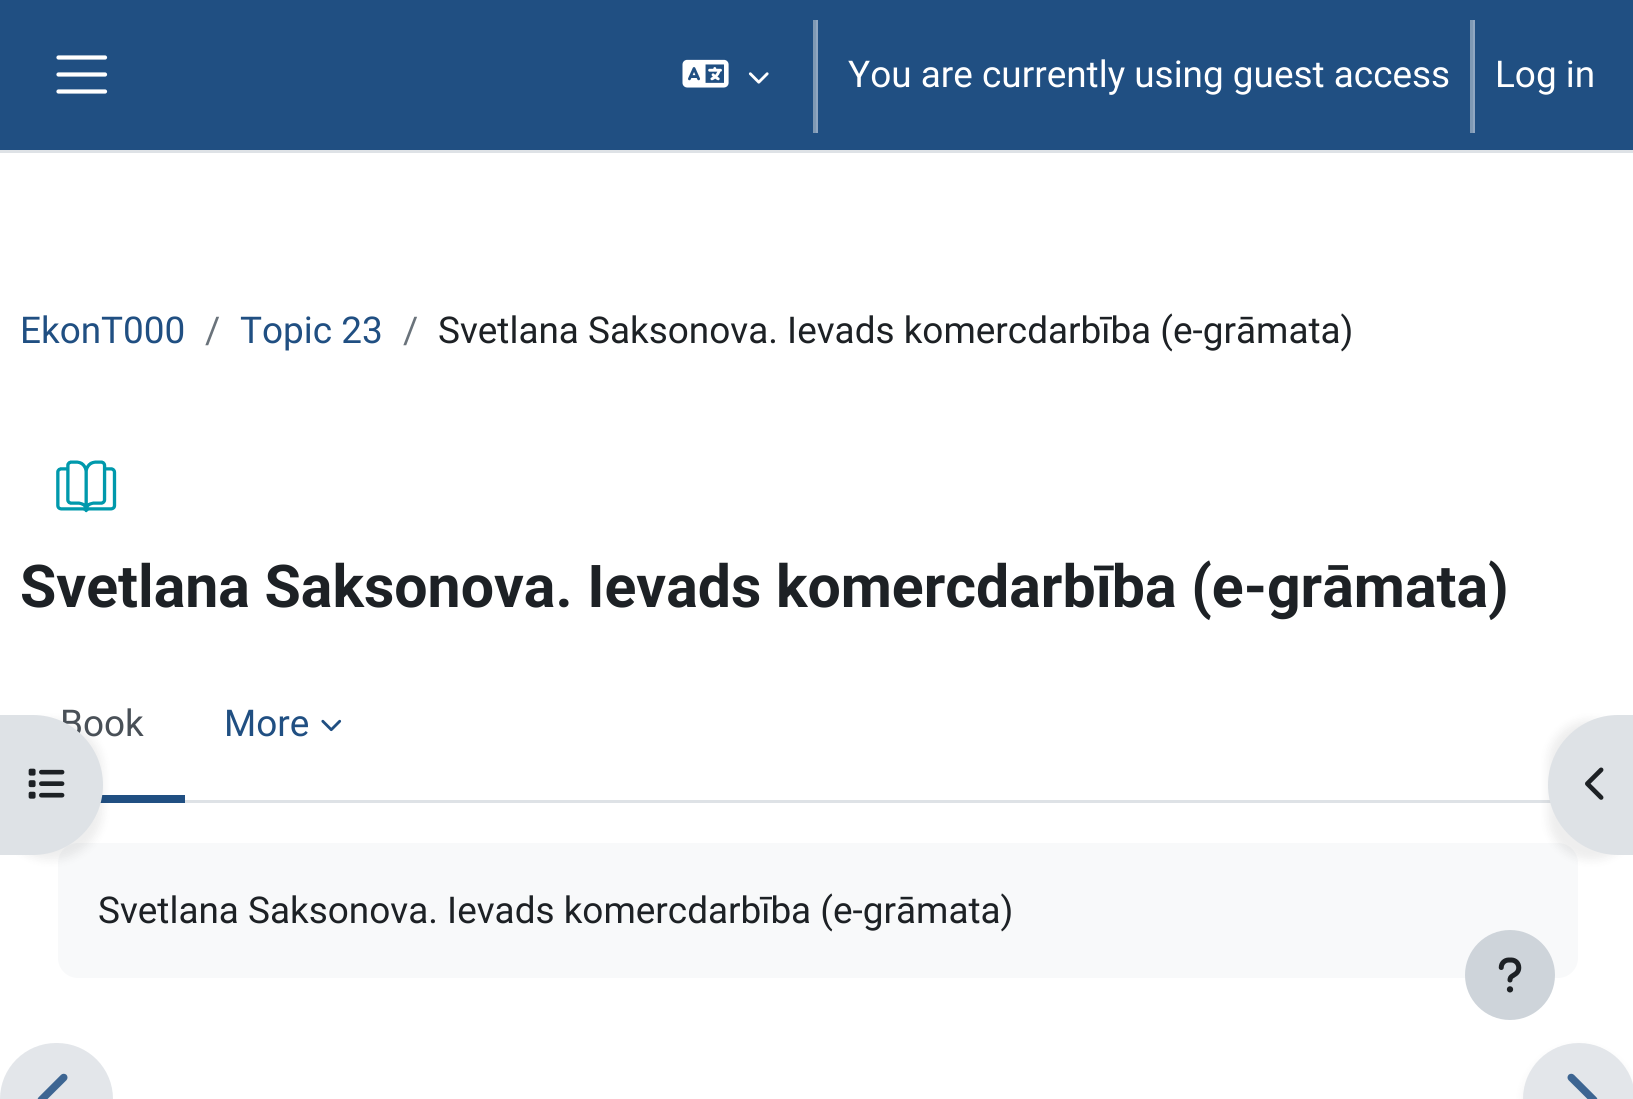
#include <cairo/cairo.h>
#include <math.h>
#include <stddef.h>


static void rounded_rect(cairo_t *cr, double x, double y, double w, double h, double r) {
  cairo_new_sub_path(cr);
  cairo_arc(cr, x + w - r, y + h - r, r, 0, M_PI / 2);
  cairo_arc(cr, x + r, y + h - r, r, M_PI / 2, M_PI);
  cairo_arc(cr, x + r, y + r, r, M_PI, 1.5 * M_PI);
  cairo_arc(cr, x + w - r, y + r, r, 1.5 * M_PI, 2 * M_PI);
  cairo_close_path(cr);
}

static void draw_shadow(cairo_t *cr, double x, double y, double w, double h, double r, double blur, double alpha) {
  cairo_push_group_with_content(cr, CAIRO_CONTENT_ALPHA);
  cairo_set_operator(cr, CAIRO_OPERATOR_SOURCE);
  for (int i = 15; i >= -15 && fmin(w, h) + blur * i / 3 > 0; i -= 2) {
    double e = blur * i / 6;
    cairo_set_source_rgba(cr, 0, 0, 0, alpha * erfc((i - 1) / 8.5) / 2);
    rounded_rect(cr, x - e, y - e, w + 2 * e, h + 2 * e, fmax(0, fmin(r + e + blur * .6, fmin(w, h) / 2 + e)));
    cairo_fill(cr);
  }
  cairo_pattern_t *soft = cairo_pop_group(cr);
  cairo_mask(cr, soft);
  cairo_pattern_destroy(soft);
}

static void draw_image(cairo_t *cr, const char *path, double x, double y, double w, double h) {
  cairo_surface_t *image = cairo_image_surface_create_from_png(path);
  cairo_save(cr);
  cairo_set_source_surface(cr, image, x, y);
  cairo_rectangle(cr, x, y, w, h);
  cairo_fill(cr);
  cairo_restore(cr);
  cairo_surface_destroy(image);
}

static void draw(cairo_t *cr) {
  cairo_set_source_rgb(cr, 1, 1, 1);
  cairo_paint(cr);
  cairo_set_source_rgb(cr, 32 / 255.0, 79 / 255.0, 130 / 255.0);
  cairo_rectangle(cr, 0, 0, 1633, 150);
  cairo_fill(cr);
  cairo_set_source_rgb(cr, 222 / 255.0, 226 / 255.0, 230 / 255.0);
  cairo_rectangle(cr, 0, 150, 1633, 3);
  cairo_fill(cr);
  cairo_new_path(cr);
  cairo_move_to(cr, 58.5, 57.5);
  cairo_line_to(cr, 105, 57.5);
  cairo_move_to(cr, 58.5, 74.5);
  cairo_line_to(cr, 105, 74.5);
  cairo_move_to(cr, 58.5, 91.5);
  cairo_line_to(cr, 105, 91.5);
  cairo_set_source_rgb(cr, 1, 1, 1);
  cairo_set_line_width(cr, 4.2);
  cairo_set_line_cap(cr, CAIRO_LINE_CAP_ROUND);
  cairo_stroke(cr);
  draw_image(cr, "images/1.png", 682, 59, 47, 29);
  draw_image(cr, "images/2.png", 748, 72, 21, 12);
  cairo_set_source_rgb(cr, 144 / 255.0, 167 / 255.0, 193 / 255.0);
  cairo_rectangle(cr, 816, 20, 2, 113);
  cairo_fill(cr);
  cairo_set_source_rgb(cr, 127 / 255.0, 153 / 255.0, 180 / 255.0);
  cairo_rectangle(cr, 813, 20, 3, 113);
  cairo_fill(cr);
  cairo_set_source_rgb(cr, 144 / 255.0, 167 / 255.0, 193 / 255.0);
  cairo_rectangle(cr, 1473, 20, 2, 113);
  cairo_fill(cr);
  cairo_set_source_rgb(cr, 127 / 255.0, 153 / 255.0, 180 / 255.0);
  cairo_rectangle(cr, 1470, 20, 3, 113);
  cairo_fill(cr);
  draw_image(cr, "images/3.png", 56, 460, 61, 53);
  cairo_set_source_rgb(cr, 32 / 255.0, 79 / 255.0, 130 / 255.0);
  cairo_rectangle(cr, 100, 795, 85, 8);
  cairo_fill(cr);
  cairo_set_source_rgb(cr, 248 / 255.0, 249 / 255.0, 250 / 255.0);
  rounded_rect(cr, 58, 843, 1520, 135, 20);
  cairo_fill(cr);
  cairo_set_source_rgb(cr, 0, 0, 0);
  draw_shadow(cr, 0, 720, 103, 140, 70, 5, 0.07);
  cairo_set_source_rgb(cr, 222 / 255.0, 226 / 255.0, 230 / 255.0);
  cairo_rectangle(cr, 185, 800, 1366, 3);
  cairo_fill(cr);
  cairo_set_source_rgb(cr, 0, 0, 0);
  draw_shadow(cr, 1548, 720, 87, 140, 70, 5, 0.07);
  cairo_set_source_rgb(cr, 222 / 255.0, 226 / 255.0, 230 / 255.0);
  cairo_new_path(cr);
  cairo_move_to(cr, 1618, 715);
  cairo_line_to(cr, 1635, 715);
  cairo_line_to(cr, 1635, 855);
  cairo_line_to(cr, 1618, 855);
  cairo_curve_to(cr, 1579.5, 855, 1548, 823.5, 1548, 785);
  cairo_curve_to(cr, 1548, 746.5, 1579.5, 715, 1618, 715);
  cairo_close_path(cr);
  cairo_fill(cr);
  draw_image(cr, "images/5.png", 1585, 767, 19, 33);
  draw_image(cr, "images/6.png", 321, 719, 21, 13);
  cairo_set_source_rgba(cr, 222 / 255.0, 226 / 255.0, 230 / 255.0, 0.85);
  rounded_rect(cr, 0, 1043, 113, 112, 56);
  cairo_fill(cr);
  draw_image(cr, "images/7.png", 37, 1073, 31, 26);
  cairo_set_source_rgb(cr, 38 / 255.0, 38 / 255.0, 38 / 255.0);
  draw_shadow(cr, 1523, 1048, 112, 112, 56, 5, 0.07);
  cairo_set_source_rgb(cr, 227 / 255.0, 230 / 255.0, 234 / 255.0);
  cairo_arc(cr, 1579, 1099, 56, 0, 2 * M_PI);
  cairo_fill(cr);
  draw_image(cr, "images/8.png", 1567, 1073, 31, 26);
  cairo_set_source_rgb(cr, 206 / 255.0, 212 / 255.0, 218 / 255.0);
  cairo_arc(cr, 1510, 975, 45, 0, 2 * M_PI);
  cairo_fill(cr);
  draw_image(cr, "images/9.png", 1498, 957, 24, 36);
  cairo_select_font_face(cr, "Roboto", CAIRO_FONT_SLANT_NORMAL, CAIRO_FONT_WEIGHT_NORMAL);
  cairo_set_font_size(cr, 36.9);
  cairo_set_source_rgb(cr, 1, 1, 1);
  cairo_move_to(cr, 848, 87);
  cairo_show_text(cr, "You are currently using guest access");
  cairo_move_to(cr, 1495, 87);
  cairo_show_text(cr, "Log in");
  cairo_set_source_rgb(cr, 32 / 255.0, 79 / 255.0, 130 / 255.0);
  cairo_move_to(cr, 20, 343);
  cairo_show_text(cr, "EkonT000");
  cairo_set_source_rgb(cr, 106 / 255.0, 115 / 255.0, 123 / 255.0);
  cairo_move_to(cr, 205, 343);
  cairo_show_text(cr, "/");
  cairo_set_source_rgb(cr, 32 / 255.0, 79 / 255.0, 130 / 255.0);
  cairo_move_to(cr, 240, 343);
  cairo_show_text(cr, "Topic 23");
  cairo_set_source_rgb(cr, 106 / 255.0, 115 / 255.0, 123 / 255.0);
  cairo_move_to(cr, 403, 343);
  cairo_show_text(cr, "/");
  cairo_set_source_rgb(cr, 29 / 255.0, 33 / 255.0, 37 / 255.0);
  cairo_move_to(cr, 438, 343);
  cairo_show_text(cr, "Svetlana Saksonova. Ievads komercdarbība (e-grāmata)");
  cairo_select_font_face(cr, "Roboto", CAIRO_FONT_SLANT_NORMAL, CAIRO_FONT_WEIGHT_BOLD);
  cairo_set_font_size(cr, 59);
  cairo_move_to(cr, 20, 607);
  cairo_show_text(cr, "Svetlana Saksonova. Ievads komercdarbība (e-grāmata)");
  cairo_select_font_face(cr, "Roboto", CAIRO_FONT_SLANT_NORMAL, CAIRO_FONT_WEIGHT_NORMAL);
  cairo_set_font_size(cr, 36.9);
  cairo_set_source_rgb(cr, 73 / 255.0, 80 / 255.0, 87 / 255.0);
  cairo_move_to(cr, 60, 736);
  cairo_show_text(cr, "Book");
  cairo_set_source_rgb(cr, 222 / 255.0, 226 / 255.0, 230 / 255.0);
  cairo_new_path(cr);
  cairo_move_to(cr, 0, 715);
  cairo_line_to(cr, 33, 715);
  cairo_curve_to(cr, 71.5, 715, 103, 746.5, 103, 785);
  cairo_curve_to(cr, 103, 823.5, 71.5, 855, 33, 855);
  cairo_line_to(cr, 0, 855);
  cairo_close_path(cr);
  cairo_fill(cr);
  draw_image(cr, "images/4.png", 28, 768, 37, 31);
  cairo_set_source_rgb(cr, 32 / 255.0, 79 / 255.0, 130 / 255.0);
  cairo_move_to(cr, 224, 736);
  cairo_show_text(cr, "More");
  cairo_set_source_rgb(cr, 29 / 255.0, 33 / 255.0, 37 / 255.0);
  cairo_move_to(cr, 98, 923);
  cairo_show_text(cr, "Svetlana Saksonova. Ievads komercdarbība (e-grāmata)");
}

int main(void) {
  cairo_surface_t *surface = cairo_image_surface_create(CAIRO_FORMAT_RGB24, 1633, 1099);
  cairo_t *cr = cairo_create(surface);
  cairo_font_options_t *options = cairo_font_options_create();
  cairo_font_options_set_hint_metrics(options, CAIRO_HINT_METRICS_OFF);
  cairo_font_options_set_hint_style(options, CAIRO_HINT_STYLE_NONE);
  cairo_set_font_options(cr, options);
  cairo_set_miter_limit(cr, 4);
  draw(cr);
  cairo_surface_write_to_png(surface, "out.png");
  cairo_font_options_destroy(options);
  cairo_destroy(cr);
  cairo_surface_destroy(surface);
  return 0;
}
